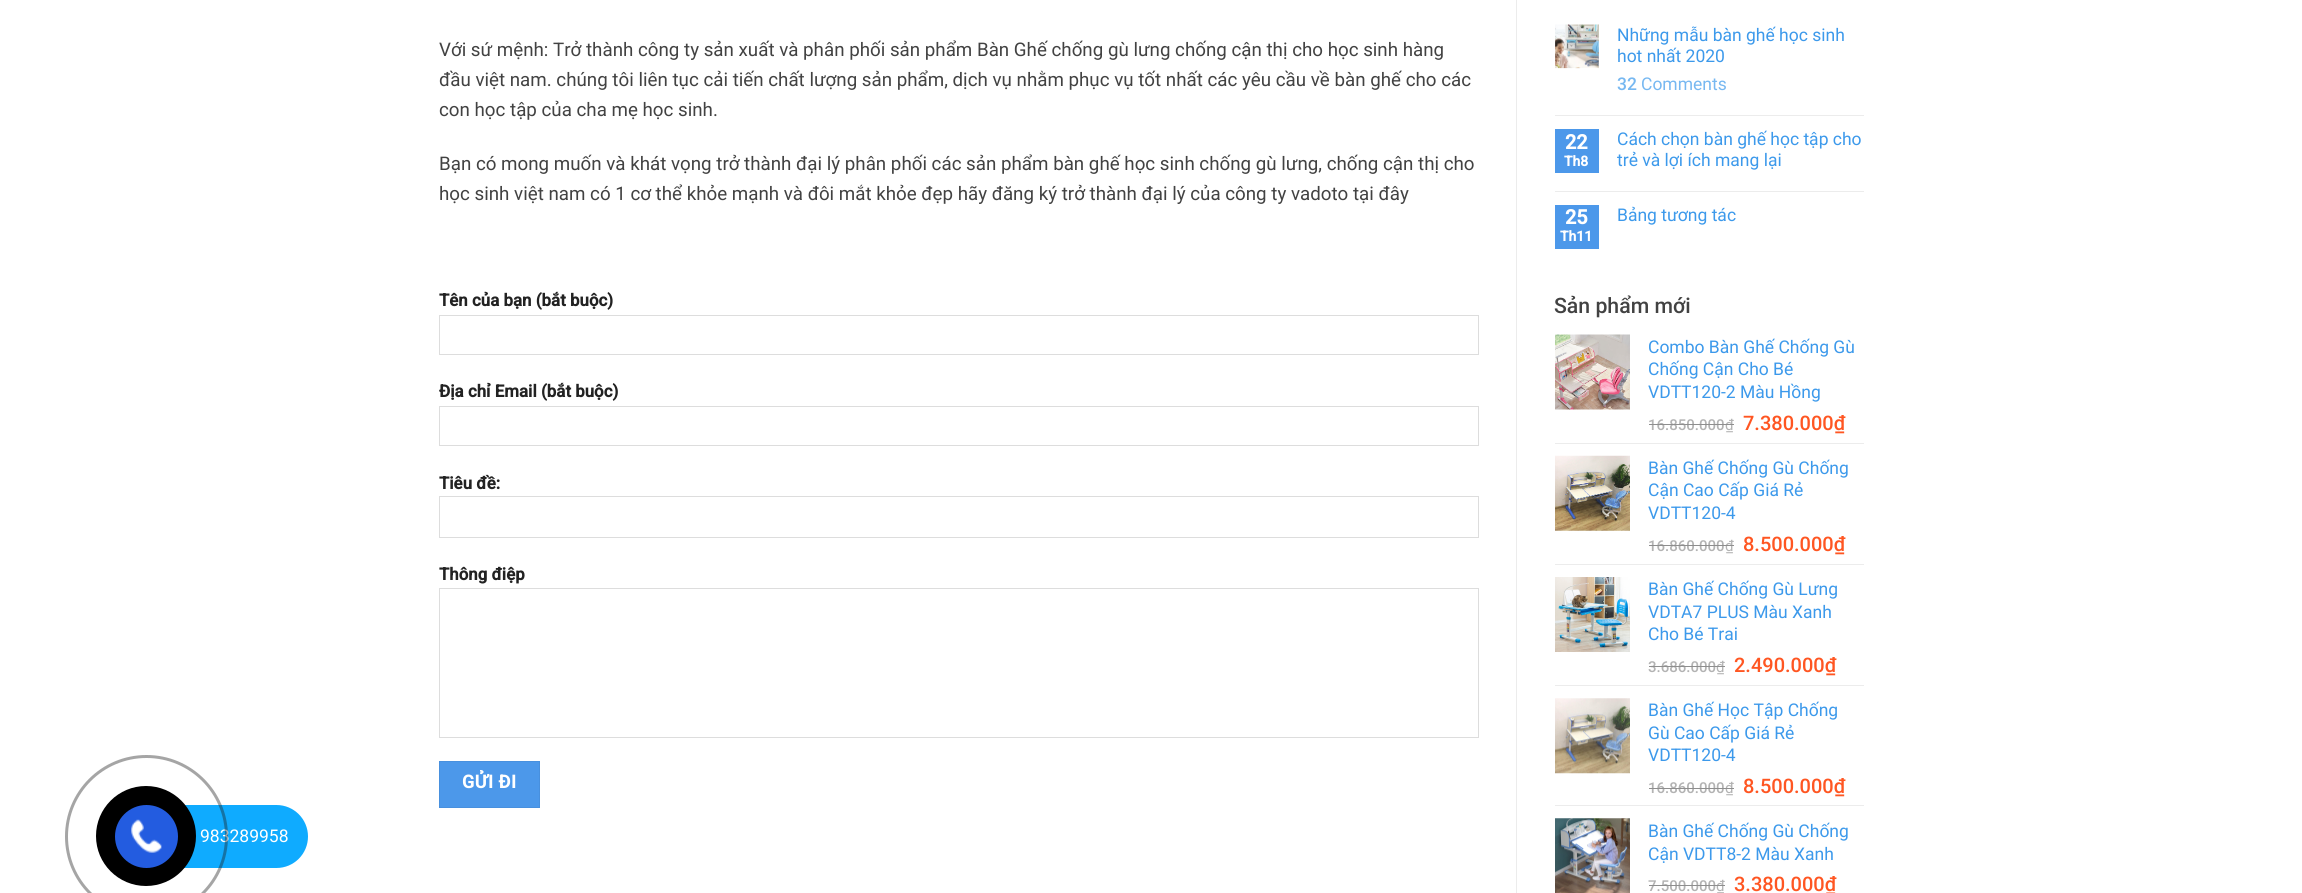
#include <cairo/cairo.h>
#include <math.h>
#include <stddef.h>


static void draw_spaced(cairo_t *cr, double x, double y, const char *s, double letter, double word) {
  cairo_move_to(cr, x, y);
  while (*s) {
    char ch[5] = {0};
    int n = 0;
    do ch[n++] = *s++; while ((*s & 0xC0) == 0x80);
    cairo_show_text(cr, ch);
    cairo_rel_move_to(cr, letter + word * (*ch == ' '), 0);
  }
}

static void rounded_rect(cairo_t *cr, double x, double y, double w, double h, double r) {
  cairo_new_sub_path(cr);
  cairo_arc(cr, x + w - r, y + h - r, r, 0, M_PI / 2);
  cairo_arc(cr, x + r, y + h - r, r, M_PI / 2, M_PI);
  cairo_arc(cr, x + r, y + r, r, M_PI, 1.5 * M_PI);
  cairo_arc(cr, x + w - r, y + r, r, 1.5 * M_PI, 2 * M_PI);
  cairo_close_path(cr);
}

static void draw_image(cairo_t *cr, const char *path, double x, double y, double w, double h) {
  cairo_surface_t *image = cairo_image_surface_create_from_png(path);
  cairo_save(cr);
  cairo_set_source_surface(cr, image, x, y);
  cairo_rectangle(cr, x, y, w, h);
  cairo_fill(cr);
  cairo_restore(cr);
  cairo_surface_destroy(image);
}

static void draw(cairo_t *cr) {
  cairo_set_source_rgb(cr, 1, 1, 1);
  cairo_paint(cr);
  cairo_set_source_rgb(cr, 15 / 255.0, 171 / 255.0, 1);
  rounded_rect(cr, 115, 805, 193, 63, 31.5);
  cairo_fill(cr);
  cairo_set_source_rgb(cr, 236 / 255.0, 236 / 255.0, 236 / 255.0);
  cairo_rectangle(cr, 1516, 0, 1, 893);
  cairo_fill(cr);
  cairo_rectangle(cr, 439.5, 315.5, 1039, 39);
  cairo_set_source_rgb(cr, 221 / 255.0, 221 / 255.0, 221 / 255.0);
  cairo_set_line_width(cr, 1);
  cairo_stroke(cr);
  cairo_rectangle(cr, 439.5, 406.5, 1039, 39);
  cairo_stroke(cr);
  cairo_rectangle(cr, 439.5, 496.5, 1039, 41);
  cairo_stroke(cr);
  cairo_rectangle(cr, 439.5, 588.5, 1039, 149);
  cairo_stroke(cr);
  cairo_set_source_rgb(cr, 76 / 255.0, 152 / 255.0, 234 / 255.0);
  cairo_rectangle(cr, 439.5, 761.5, 100, 46);
  cairo_fill_preserve(cr);
  cairo_set_source_rgb(cr, 72 / 255.0, 144 / 255.0, 222 / 255.0);
  cairo_stroke(cr);
  draw_image(cr, "images/2.png", 1555, 24, 44, 45);
  cairo_set_source_rgb(cr, 236 / 255.0, 236 / 255.0, 236 / 255.0);
  cairo_rectangle(cr, 1555, 115, 309, 1);
  cairo_fill(cr);
  cairo_set_source_rgb(cr, 76 / 255.0, 152 / 255.0, 234 / 255.0);
  cairo_rectangle(cr, 1555, 129, 44, 44);
  cairo_fill(cr);
  cairo_set_source_rgb(cr, 236 / 255.0, 236 / 255.0, 236 / 255.0);
  cairo_rectangle(cr, 1555, 191, 309, 1);
  cairo_fill(cr);
  cairo_set_source_rgb(cr, 76 / 255.0, 152 / 255.0, 234 / 255.0);
  cairo_rectangle(cr, 1555, 205, 44, 44);
  cairo_fill(cr);
  draw_image(cr, "images/3.png", 1555, 334, 75, 76);
  cairo_set_source_rgb(cr, 236 / 255.0, 236 / 255.0, 236 / 255.0);
  cairo_rectangle(cr, 1555, 443, 309, 1);
  cairo_fill(cr);
  draw_image(cr, "images/4.png", 1555, 455, 75, 76);
  cairo_rectangle(cr, 1555, 564, 309, 1);
  cairo_fill(cr);
  draw_image(cr, "images/5.png", 1555, 577, 75, 75);
  cairo_rectangle(cr, 1555, 685, 309, 1);
  cairo_fill(cr);
  draw_image(cr, "images/6.png", 1555, 698, 75, 76);
  cairo_rectangle(cr, 1555, 805, 309, 1);
  cairo_fill(cr);
  draw_image(cr, "images/7.png", 1555, 818, 75, 75);
  cairo_select_font_face(cr, "Roboto", CAIRO_FONT_SLANT_NORMAL, CAIRO_FONT_WEIGHT_NORMAL);
  cairo_set_font_size(cr, 17.5);
  cairo_set_source_rgb(cr, 1, 1, 1);
  cairo_move_to(cr, 200, 842);
  cairo_show_text(cr, "983289958");
  cairo_new_path(cr);
  cairo_arc(cr, 146.5, 836.5, 80, 0, 2 * M_PI);
  cairo_set_source_rgba(cr, 30 / 255.0, 30 / 255.0, 30 / 255.0, 0.4);
  cairo_set_line_width(cr, 3);
  cairo_stroke(cr);
  cairo_set_source_rgb(cr, 0, 0, 0);
  cairo_arc(cr, 146, 836, 50, 0, 2 * M_PI);
  cairo_fill(cr);
  cairo_set_source_rgb(cr, 35 / 255.0, 92 / 255.0, 224 / 255.0);
  cairo_arc(cr, 146.5, 836.5, 31.5, 0, 2 * M_PI);
  cairo_fill(cr);
  draw_image(cr, "images/1.png", 131, 819, 31, 34);
  cairo_set_font_size(cr, 18.75);
  cairo_set_source_rgb(cr, 66 / 255.0, 66 / 255.0, 66 / 255.0);
  cairo_move_to(cr, 439, 56);
  cairo_show_text(cr, "Với sứ mệnh: Trở thành công ty sản xuất và phân phối sản phẩm Bàn Ghế chống gù lưng chống cận thị cho học sinh hàng");
  cairo_move_to(cr, 439, 86);
  cairo_show_text(cr, "đầu việt nam. chúng tôi liên tục cải tiến chất lượng sản phẩm, dịch vụ nhằm phục vụ tốt nhất các yêu cầu về bàn ghế cho các");
  cairo_move_to(cr, 439, 116);
  cairo_show_text(cr, "con học tập của cha mẹ học sinh.");
  cairo_move_to(cr, 439, 170);
  cairo_show_text(cr, "Bạn có mong muốn và khát vọng trở thành đại lý phân phối các sản phẩm bàn ghế học sinh chống gù lưng, chống cận thị cho");
  cairo_move_to(cr, 439, 200);
  cairo_show_text(cr, "học sinh việt nam có 1 cơ thể khỏe mạnh và đôi mắt khỏe đẹp hãy đăng ký trở thành đại lý của công ty vadoto tại đây");
  cairo_select_font_face(cr, "Roboto", CAIRO_FONT_SLANT_NORMAL, CAIRO_FONT_WEIGHT_BOLD);
  cairo_set_font_size(cr, 16.9);
  cairo_set_source_rgb(cr, 34 / 255.0, 34 / 255.0, 34 / 255.0);
  cairo_move_to(cr, 439, 306);
  cairo_show_text(cr, "Tên của bạn (bắt buộc)");
  cairo_move_to(cr, 439, 397);
  cairo_show_text(cr, "Địa chỉ Email (bắt buộc)");
  cairo_move_to(cr, 439, 489);
  cairo_show_text(cr, "Tiêu đề:");
  cairo_move_to(cr, 439, 580);
  cairo_show_text(cr, "Thông điệp");
  cairo_set_font_size(cr, 18);
  cairo_set_source_rgb(cr, 1, 1, 1);
  draw_spaced(cr, 462, 788, "GỬI ĐI", 0.5, 0);
  cairo_select_font_face(cr, "Roboto", CAIRO_FONT_SLANT_NORMAL, CAIRO_FONT_WEIGHT_NORMAL);
  cairo_set_font_size(cr, 17.5);
  cairo_set_source_rgb(cr, 60 / 255.0, 153 / 255.0, 235 / 255.0);
  cairo_move_to(cr, 1617, 41);
  cairo_show_text(cr, "Những mẫu bàn ghế học sinh");
  cairo_move_to(cr, 1617, 62);
  cairo_show_text(cr, "hot nhất 2020");
  cairo_select_font_face(cr, "Roboto Medium", CAIRO_FONT_SLANT_NORMAL, CAIRO_FONT_WEIGHT_NORMAL);
  cairo_set_source_rgb(cr, 119 / 255.0, 184 / 255.0, 241 / 255.0);
  cairo_move_to(cr, 1617, 90);
  cairo_show_text(cr, "32");
  cairo_select_font_face(cr, "Roboto", CAIRO_FONT_SLANT_NORMAL, CAIRO_FONT_WEIGHT_NORMAL);
  cairo_move_to(cr, 1641, 90);
  cairo_show_text(cr, "Comments");
  cairo_select_font_face(cr, "Roboto", CAIRO_FONT_SLANT_NORMAL, CAIRO_FONT_WEIGHT_BOLD);
  cairo_set_font_size(cr, 20);
  cairo_set_source_rgb(cr, 1, 1, 1);
  cairo_move_to(cr, 1565, 149);
  cairo_show_text(cr, "22");
  cairo_set_font_size(cr, 14);
  cairo_move_to(cr, 1564, 166);
  cairo_show_text(cr, "Th8");
  cairo_select_font_face(cr, "Roboto", CAIRO_FONT_SLANT_NORMAL, CAIRO_FONT_WEIGHT_NORMAL);
  cairo_set_font_size(cr, 17.5);
  cairo_set_source_rgb(cr, 60 / 255.0, 153 / 255.0, 235 / 255.0);
  cairo_move_to(cr, 1617, 145);
  cairo_show_text(cr, "Cách chọn bàn ghế học tập cho");
  cairo_move_to(cr, 1617, 166);
  cairo_show_text(cr, "trẻ và lợi ích mang lại");
  cairo_select_font_face(cr, "Roboto", CAIRO_FONT_SLANT_NORMAL, CAIRO_FONT_WEIGHT_BOLD);
  cairo_set_font_size(cr, 20);
  cairo_set_source_rgb(cr, 1, 1, 1);
  cairo_move_to(cr, 1565, 224);
  cairo_show_text(cr, "25");
  cairo_set_font_size(cr, 14);
  cairo_move_to(cr, 1560, 241);
  cairo_show_text(cr, "Th11");
  cairo_select_font_face(cr, "Roboto", CAIRO_FONT_SLANT_NORMAL, CAIRO_FONT_WEIGHT_NORMAL);
  cairo_set_font_size(cr, 17.5);
  cairo_set_source_rgb(cr, 60 / 255.0, 153 / 255.0, 235 / 255.0);
  cairo_move_to(cr, 1617, 221);
  cairo_show_text(cr, "Bảng tương tác");
  cairo_select_font_face(cr, "Roboto Medium", CAIRO_FONT_SLANT_NORMAL, CAIRO_FONT_WEIGHT_NORMAL);
  cairo_set_font_size(cr, 21.25);
  cairo_set_source_rgb(cr, 66 / 255.0, 66 / 255.0, 66 / 255.0);
  cairo_move_to(cr, 1554, 313);
  cairo_show_text(cr, "Sản phẩm mới");
  cairo_select_font_face(cr, "Roboto", CAIRO_FONT_SLANT_NORMAL, CAIRO_FONT_WEIGHT_NORMAL);
  cairo_set_font_size(cr, 17.5);
  cairo_set_source_rgb(cr, 60 / 255.0, 153 / 255.0, 235 / 255.0);
  cairo_move_to(cr, 1648, 353);
  cairo_show_text(cr, "Combo Bàn Ghế Chống Gù");
  cairo_move_to(cr, 1648, 375);
  cairo_show_text(cr, "Chống Cận Cho Bé");
  cairo_move_to(cr, 1648, 398);
  cairo_show_text(cr, "VDTT120-2 Màu Hồng");
  cairo_select_font_face(cr, "Roboto Medium", CAIRO_FONT_SLANT_NORMAL, CAIRO_FONT_WEIGHT_NORMAL);
  cairo_set_font_size(cr, 15);
  cairo_set_source_rgb(cr, 179 / 255.0, 179 / 255.0, 179 / 255.0);
  cairo_move_to(cr, 1648, 430);
  cairo_show_text(cr, "16.850.000");
  cairo_set_source_rgb(cr, 142 / 255.0, 142 / 255.0, 142 / 255.0);
  cairo_rectangle(cr, 1649, 424, 76, 1);
  cairo_fill(cr);
  cairo_select_font_face(cr, "Roboto", CAIRO_FONT_SLANT_NORMAL, CAIRO_FONT_WEIGHT_NORMAL);
  cairo_set_source_rgb(cr, 179 / 255.0, 179 / 255.0, 179 / 255.0);
  cairo_move_to(cr, 1725, 430);
  cairo_show_text(cr, "₫");
  cairo_set_source_rgb(cr, 142 / 255.0, 142 / 255.0, 142 / 255.0);
  cairo_rectangle(cr, 1725, 424, 9, 1);
  cairo_fill(cr);
  cairo_select_font_face(cr, "Roboto Medium", CAIRO_FONT_SLANT_NORMAL, CAIRO_FONT_WEIGHT_NORMAL);
  cairo_set_font_size(cr, 20);
  cairo_set_source_rgb(cr, 1, 86 / 255.0, 34 / 255.0);
  cairo_move_to(cr, 1743, 430);
  cairo_show_text(cr, "7.380.000₫");
  cairo_select_font_face(cr, "Roboto", CAIRO_FONT_SLANT_NORMAL, CAIRO_FONT_WEIGHT_NORMAL);
  cairo_set_font_size(cr, 17.5);
  cairo_set_source_rgb(cr, 60 / 255.0, 153 / 255.0, 235 / 255.0);
  cairo_move_to(cr, 1648, 474);
  cairo_show_text(cr, "Bàn Ghế Chống Gù Chống");
  cairo_move_to(cr, 1648, 496);
  cairo_show_text(cr, "Cận Cao Cấp Giá Rẻ");
  cairo_move_to(cr, 1648, 519);
  cairo_show_text(cr, "VDTT120-4");
  cairo_select_font_face(cr, "Roboto Medium", CAIRO_FONT_SLANT_NORMAL, CAIRO_FONT_WEIGHT_NORMAL);
  cairo_set_font_size(cr, 15);
  cairo_set_source_rgb(cr, 179 / 255.0, 179 / 255.0, 179 / 255.0);
  cairo_move_to(cr, 1648, 551);
  cairo_show_text(cr, "16.860.000");
  cairo_set_source_rgb(cr, 142 / 255.0, 142 / 255.0, 142 / 255.0);
  cairo_rectangle(cr, 1649, 545, 76, 1);
  cairo_fill(cr);
  cairo_select_font_face(cr, "Roboto", CAIRO_FONT_SLANT_NORMAL, CAIRO_FONT_WEIGHT_NORMAL);
  cairo_set_source_rgb(cr, 179 / 255.0, 179 / 255.0, 179 / 255.0);
  cairo_move_to(cr, 1725, 551);
  cairo_show_text(cr, "₫");
  cairo_set_source_rgb(cr, 142 / 255.0, 142 / 255.0, 142 / 255.0);
  cairo_rectangle(cr, 1725, 545, 9, 1);
  cairo_fill(cr);
  cairo_select_font_face(cr, "Roboto Medium", CAIRO_FONT_SLANT_NORMAL, CAIRO_FONT_WEIGHT_NORMAL);
  cairo_set_font_size(cr, 20);
  cairo_set_source_rgb(cr, 1, 86 / 255.0, 34 / 255.0);
  cairo_move_to(cr, 1743, 551);
  cairo_show_text(cr, "8.500.000₫");
  cairo_select_font_face(cr, "Roboto", CAIRO_FONT_SLANT_NORMAL, CAIRO_FONT_WEIGHT_NORMAL);
  cairo_set_font_size(cr, 17.5);
  cairo_set_source_rgb(cr, 60 / 255.0, 153 / 255.0, 235 / 255.0);
  cairo_move_to(cr, 1648, 595);
  cairo_show_text(cr, "Bàn Ghế Chống Gù Lưng");
  cairo_move_to(cr, 1648, 618);
  cairo_show_text(cr, "VDTA7 PLUS Màu Xanh");
  cairo_move_to(cr, 1648, 640);
  cairo_show_text(cr, "Cho Bé Trai");
  cairo_select_font_face(cr, "Roboto Medium", CAIRO_FONT_SLANT_NORMAL, CAIRO_FONT_WEIGHT_NORMAL);
  cairo_set_font_size(cr, 15);
  cairo_set_source_rgb(cr, 179 / 255.0, 179 / 255.0, 179 / 255.0);
  cairo_move_to(cr, 1648, 672);
  cairo_show_text(cr, "3.686.000");
  cairo_set_source_rgb(cr, 142 / 255.0, 142 / 255.0, 142 / 255.0);
  cairo_rectangle(cr, 1649, 666, 67, 1);
  cairo_fill(cr);
  cairo_select_font_face(cr, "Roboto", CAIRO_FONT_SLANT_NORMAL, CAIRO_FONT_WEIGHT_NORMAL);
  cairo_set_source_rgb(cr, 179 / 255.0, 179 / 255.0, 179 / 255.0);
  cairo_move_to(cr, 1716, 672);
  cairo_show_text(cr, "₫");
  cairo_set_source_rgb(cr, 142 / 255.0, 142 / 255.0, 142 / 255.0);
  cairo_rectangle(cr, 1716, 666, 9, 1);
  cairo_fill(cr);
  cairo_select_font_face(cr, "Roboto Medium", CAIRO_FONT_SLANT_NORMAL, CAIRO_FONT_WEIGHT_NORMAL);
  cairo_set_font_size(cr, 20);
  cairo_set_source_rgb(cr, 1, 86 / 255.0, 34 / 255.0);
  cairo_move_to(cr, 1734, 672);
  cairo_show_text(cr, "2.490.000₫");
  cairo_select_font_face(cr, "Roboto", CAIRO_FONT_SLANT_NORMAL, CAIRO_FONT_WEIGHT_NORMAL);
  cairo_set_font_size(cr, 17.5);
  cairo_set_source_rgb(cr, 60 / 255.0, 153 / 255.0, 235 / 255.0);
  cairo_move_to(cr, 1648, 716);
  cairo_show_text(cr, "Bàn Ghế Học Tập Chống");
  cairo_move_to(cr, 1648, 739);
  cairo_show_text(cr, "Gù Cao Cấp Giá Rẻ");
  cairo_move_to(cr, 1648, 761);
  cairo_show_text(cr, "VDTT120-4");
  cairo_select_font_face(cr, "Roboto Medium", CAIRO_FONT_SLANT_NORMAL, CAIRO_FONT_WEIGHT_NORMAL);
  cairo_set_font_size(cr, 15);
  cairo_set_source_rgb(cr, 179 / 255.0, 179 / 255.0, 179 / 255.0);
  cairo_move_to(cr, 1648, 793);
  cairo_show_text(cr, "16.860.000");
  cairo_select_font_face(cr, "Roboto", CAIRO_FONT_SLANT_NORMAL, CAIRO_FONT_WEIGHT_NORMAL);
  cairo_move_to(cr, 1725, 793);
  cairo_show_text(cr, "₫");
  cairo_set_source_rgb(cr, 142 / 255.0, 142 / 255.0, 142 / 255.0);
  cairo_rectangle(cr, 1649, 788, 76, 1);
  cairo_fill(cr);
  cairo_rectangle(cr, 1725, 788, 9, 1);
  cairo_fill(cr);
  cairo_select_font_face(cr, "Roboto Medium", CAIRO_FONT_SLANT_NORMAL, CAIRO_FONT_WEIGHT_NORMAL);
  cairo_set_font_size(cr, 20);
  cairo_set_source_rgb(cr, 1, 86 / 255.0, 34 / 255.0);
  cairo_move_to(cr, 1743, 793);
  cairo_show_text(cr, "8.500.000₫");
  cairo_select_font_face(cr, "Roboto", CAIRO_FONT_SLANT_NORMAL, CAIRO_FONT_WEIGHT_NORMAL);
  cairo_set_font_size(cr, 17.5);
  cairo_set_source_rgb(cr, 60 / 255.0, 153 / 255.0, 235 / 255.0);
  cairo_move_to(cr, 1648, 837);
  cairo_show_text(cr, "Bàn Ghế Chống Gù Chống");
  cairo_move_to(cr, 1648, 860);
  cairo_show_text(cr, "Cận VDTT8-2 Màu Xanh");
  cairo_select_font_face(cr, "Roboto Medium", CAIRO_FONT_SLANT_NORMAL, CAIRO_FONT_WEIGHT_NORMAL);
  cairo_set_font_size(cr, 15);
  cairo_set_source_rgb(cr, 179 / 255.0, 179 / 255.0, 179 / 255.0);
  cairo_move_to(cr, 1648, 891);
  cairo_show_text(cr, "7.500.000");
  cairo_set_source_rgb(cr, 142 / 255.0, 142 / 255.0, 142 / 255.0);
  cairo_rectangle(cr, 1649, 885, 67, 1);
  cairo_fill(cr);
  cairo_select_font_face(cr, "Roboto", CAIRO_FONT_SLANT_NORMAL, CAIRO_FONT_WEIGHT_NORMAL);
  cairo_set_source_rgb(cr, 179 / 255.0, 179 / 255.0, 179 / 255.0);
  cairo_move_to(cr, 1716, 891);
  cairo_show_text(cr, "₫");
  cairo_set_source_rgb(cr, 142 / 255.0, 142 / 255.0, 142 / 255.0);
  cairo_rectangle(cr, 1716, 885, 9, 1);
  cairo_fill(cr);
  cairo_select_font_face(cr, "Roboto Medium", CAIRO_FONT_SLANT_NORMAL, CAIRO_FONT_WEIGHT_NORMAL);
  cairo_set_font_size(cr, 20);
  cairo_set_source_rgb(cr, 1, 86 / 255.0, 34 / 255.0);
  cairo_move_to(cr, 1734, 891);
  cairo_show_text(cr, "3.380.000₫");
}

int main(void) {
  cairo_surface_t *surface = cairo_image_surface_create(CAIRO_FORMAT_RGB24, 2302, 893);
  cairo_t *cr = cairo_create(surface);
  cairo_font_options_t *options = cairo_font_options_create();
  cairo_font_options_set_hint_metrics(options, CAIRO_HINT_METRICS_OFF);
  cairo_font_options_set_hint_style(options, CAIRO_HINT_STYLE_NONE);
  cairo_set_font_options(cr, options);
  cairo_set_miter_limit(cr, 4);
  draw(cr);
  cairo_surface_write_to_png(surface, "out.png");
  cairo_font_options_destroy(options);
  cairo_destroy(cr);
  cairo_surface_destroy(surface);
  return 0;
}
